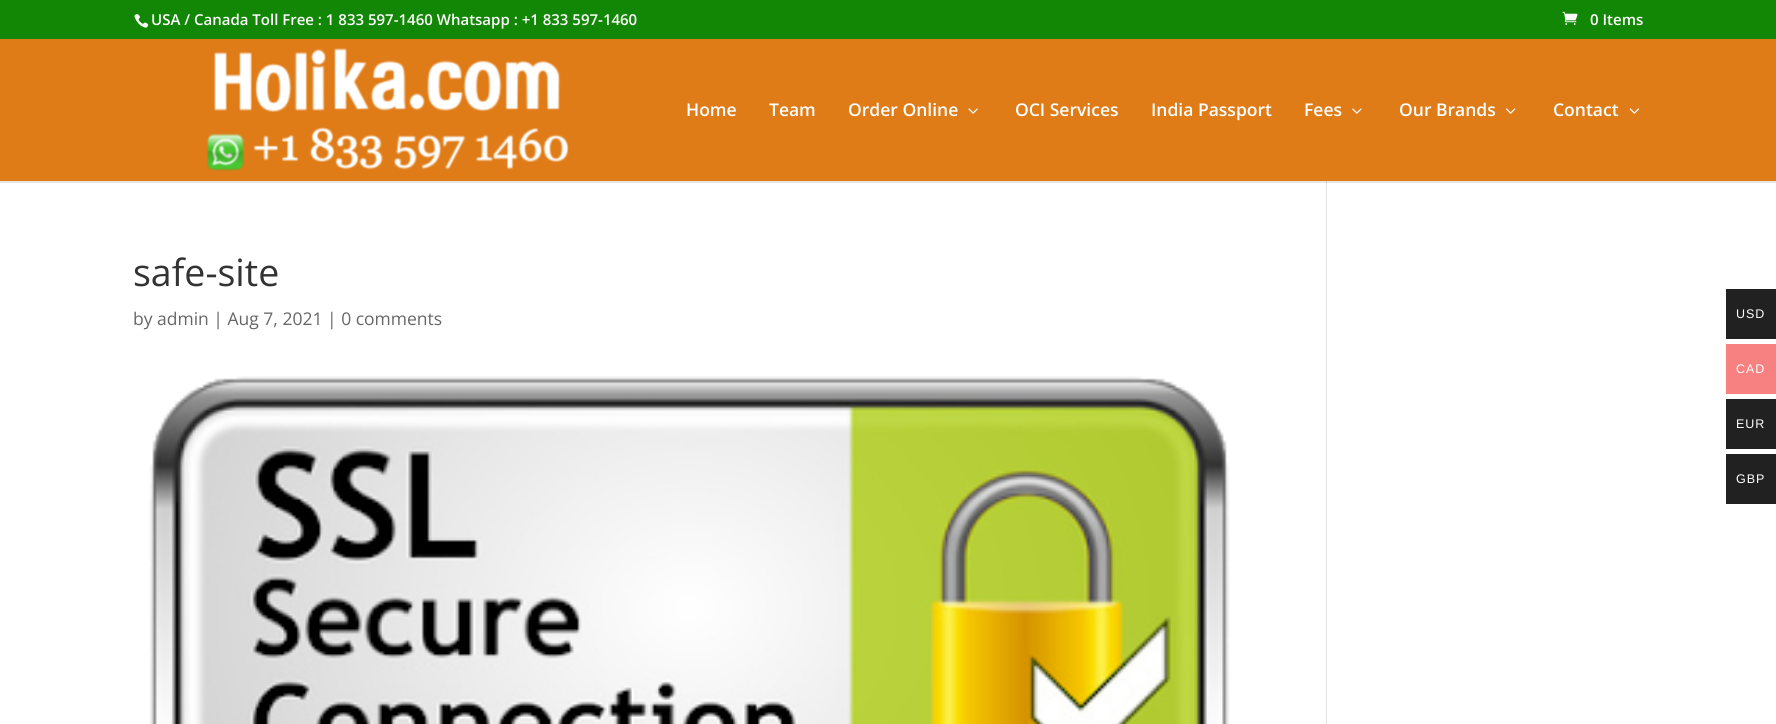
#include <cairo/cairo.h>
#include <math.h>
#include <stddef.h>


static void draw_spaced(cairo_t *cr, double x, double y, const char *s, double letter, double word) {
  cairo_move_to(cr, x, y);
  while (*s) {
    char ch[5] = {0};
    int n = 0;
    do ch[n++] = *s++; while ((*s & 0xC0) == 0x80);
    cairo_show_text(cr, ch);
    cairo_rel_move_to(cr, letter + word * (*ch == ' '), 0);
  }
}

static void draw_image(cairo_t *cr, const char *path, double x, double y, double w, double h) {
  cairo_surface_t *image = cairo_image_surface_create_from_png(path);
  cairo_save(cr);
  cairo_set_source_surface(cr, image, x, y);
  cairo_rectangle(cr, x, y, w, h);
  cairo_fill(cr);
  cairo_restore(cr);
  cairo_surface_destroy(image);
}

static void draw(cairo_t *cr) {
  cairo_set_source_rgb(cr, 1, 1, 1);
  cairo_paint(cr);
  cairo_set_source_rgb(cr, 230 / 255.0, 230 / 255.0, 230 / 255.0);
  cairo_rectangle(cr, 0, 181, 1776, 2);
  cairo_fill(cr);
  cairo_set_source_rgb(cr, 18 / 255.0, 135 / 255.0, 5 / 255.0);
  cairo_rectangle(cr, 0, 0, 1776, 39);
  cairo_fill(cr);
  draw_image(cr, "images/1.png", 134, 14, 15, 14);
  draw_image(cr, "images/2.png", 1562, 11, 16, 14);
  cairo_set_source_rgb(cr, 223 / 255.0, 124 / 255.0, 24 / 255.0);
  cairo_rectangle(cr, 0, 39, 1776, 142);
  cairo_fill(cr);
  draw_image(cr, "images/3.png", 206, 48, 363, 123);
  draw_image(cr, "images/4.png", 968, 108, 10, 6);
  draw_image(cr, "images/5.png", 1352, 108, 10, 6);
  draw_image(cr, "images/6.png", 1506, 108, 10, 6);
  draw_image(cr, "images/7.png", 1629, 108, 10, 6);
  draw_image(cr, "images/8.png", 149, 376, 1081, 348);
  cairo_set_source_rgb(cr, 226 / 255.0, 226 / 255.0, 226 / 255.0);
  cairo_rectangle(cr, 1326, 181, 1, 543);
  cairo_fill(cr);
  cairo_set_source_rgb(cr, 203 / 255.0, 203 / 255.0, 203 / 255.0);
  cairo_rectangle(cr, 1326, 181, 1, 2);
  cairo_fill(cr);
  cairo_set_source_rgb(cr, 33 / 255.0, 33 / 255.0, 33 / 255.0);
  cairo_rectangle(cr, 1726, 289, 50, 50);
  cairo_fill(cr);
  cairo_set_source_rgb(cr, 247 / 255.0, 128 / 255.0, 128 / 255.0);
  cairo_rectangle(cr, 1726, 344, 50, 50);
  cairo_fill(cr);
  cairo_set_source_rgb(cr, 33 / 255.0, 33 / 255.0, 33 / 255.0);
  cairo_rectangle(cr, 1726, 399, 50, 50);
  cairo_fill(cr);
  cairo_rectangle(cr, 1726, 454, 50, 50);
  cairo_fill(cr);
  cairo_select_font_face(cr, "Open Sans SemiBold", CAIRO_FONT_SLANT_NORMAL, CAIRO_FONT_WEIGHT_NORMAL);
  cairo_set_font_size(cr, 15);
  cairo_set_source_rgb(cr, 1, 1, 1);
  cairo_move_to(cr, 151, 25);
  cairo_show_text(cr, "USA / Canada Toll Free : 1 833 597-1460 Whatsapp : +1 833 597-1460");
  cairo_move_to(cr, 1590, 25);
  cairo_show_text(cr, "0 Items");
  cairo_set_font_size(cr, 17.5);
  cairo_move_to(cr, 686, 116);
  cairo_show_text(cr, "Home");
  cairo_move_to(cr, 769, 116);
  cairo_show_text(cr, "Team");
  cairo_move_to(cr, 848, 116);
  cairo_show_text(cr, "Order Online");
  cairo_move_to(cr, 1015, 116);
  cairo_show_text(cr, "OCI Services");
  cairo_move_to(cr, 1151, 116);
  cairo_show_text(cr, "India Passport");
  cairo_move_to(cr, 1304, 116);
  cairo_show_text(cr, "Fees");
  cairo_move_to(cr, 1399, 116);
  cairo_show_text(cr, "Our Brands");
  cairo_move_to(cr, 1553, 116);
  cairo_show_text(cr, "Contact");
  cairo_select_font_face(cr, "Open Sans", CAIRO_FONT_SLANT_NORMAL, CAIRO_FONT_WEIGHT_NORMAL);
  cairo_set_font_size(cr, 37.5);
  cairo_set_source_rgb(cr, 51 / 255.0, 51 / 255.0, 51 / 255.0);
  cairo_move_to(cr, 133, 286);
  cairo_show_text(cr, "safe-site");
  cairo_set_font_size(cr, 17.5);
  cairo_set_source_rgb(cr, 102 / 255.0, 102 / 255.0, 102 / 255.0);
  cairo_move_to(cr, 133, 325);
  cairo_show_text(cr, "by admin | Aug 7, 2021 | 0 comments");
  cairo_select_font_face(cr, "Liberation Sans", CAIRO_FONT_SLANT_NORMAL, CAIRO_FONT_WEIGHT_NORMAL);
  cairo_set_font_size(cr, 12.5);
  cairo_set_source_rgb(cr, 1, 1, 1);
  draw_spaced(cr, 1736, 318, "USD", 1, 0);
  draw_spaced(cr, 1736, 373, "CAD", 1, 0);
  draw_spaced(cr, 1736, 428, "EUR", 1, 0);
  draw_spaced(cr, 1736, 483, "GBP", 1, 0);
}

int main(void) {
  cairo_surface_t *surface = cairo_image_surface_create(CAIRO_FORMAT_RGB24, 1776, 724);
  cairo_t *cr = cairo_create(surface);
  cairo_font_options_t *options = cairo_font_options_create();
  cairo_font_options_set_hint_metrics(options, CAIRO_HINT_METRICS_OFF);
  cairo_font_options_set_hint_style(options, CAIRO_HINT_STYLE_NONE);
  cairo_set_font_options(cr, options);
  cairo_set_miter_limit(cr, 4);
  draw(cr);
  cairo_surface_write_to_png(surface, "out.png");
  cairo_font_options_destroy(options);
  cairo_destroy(cr);
  cairo_surface_destroy(surface);
  return 0;
}
